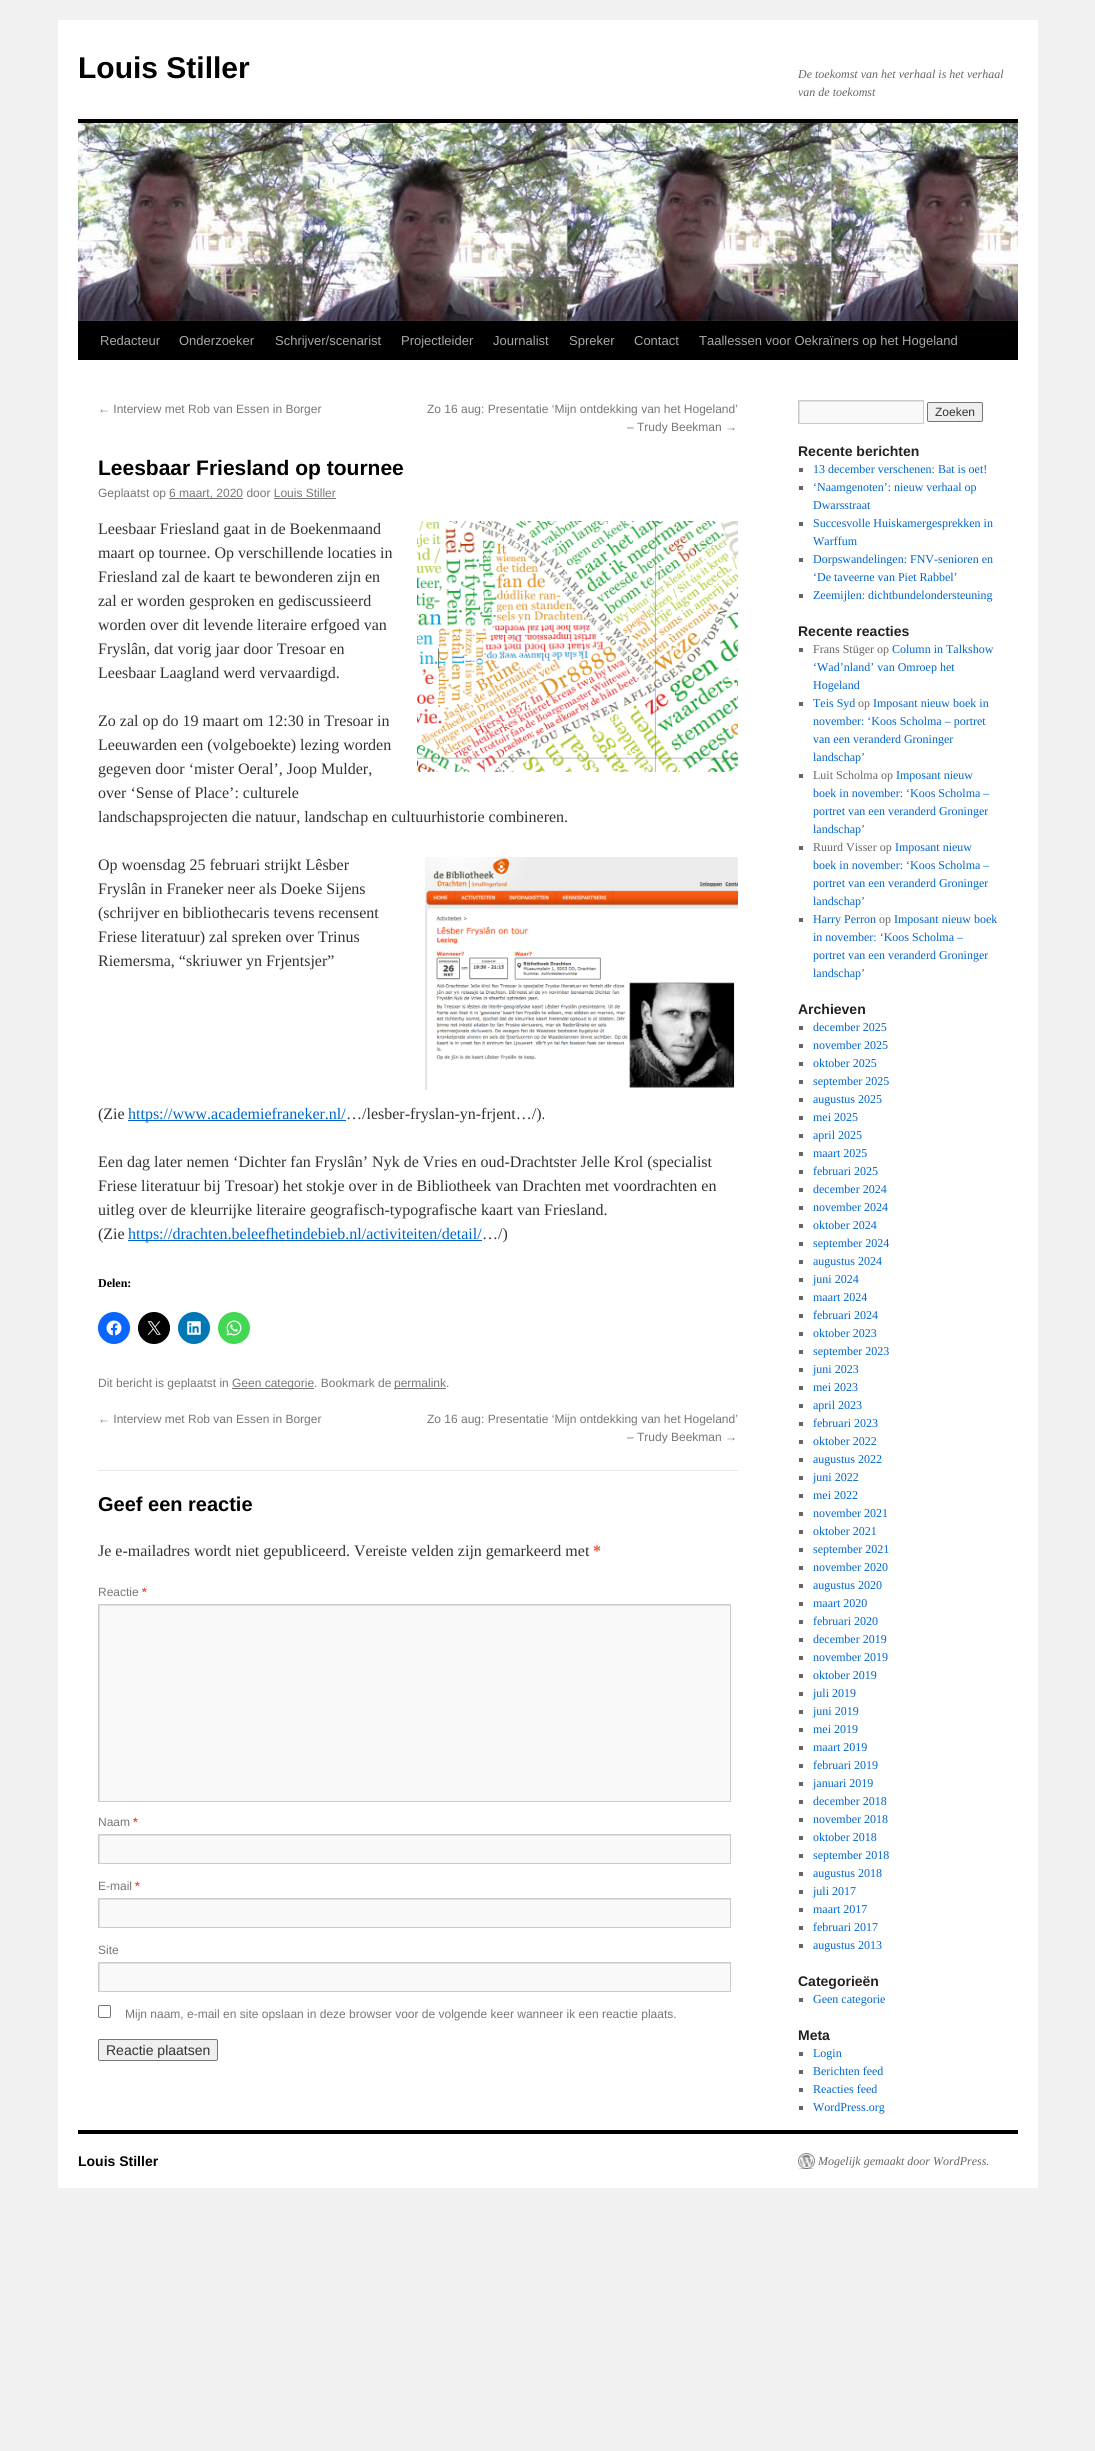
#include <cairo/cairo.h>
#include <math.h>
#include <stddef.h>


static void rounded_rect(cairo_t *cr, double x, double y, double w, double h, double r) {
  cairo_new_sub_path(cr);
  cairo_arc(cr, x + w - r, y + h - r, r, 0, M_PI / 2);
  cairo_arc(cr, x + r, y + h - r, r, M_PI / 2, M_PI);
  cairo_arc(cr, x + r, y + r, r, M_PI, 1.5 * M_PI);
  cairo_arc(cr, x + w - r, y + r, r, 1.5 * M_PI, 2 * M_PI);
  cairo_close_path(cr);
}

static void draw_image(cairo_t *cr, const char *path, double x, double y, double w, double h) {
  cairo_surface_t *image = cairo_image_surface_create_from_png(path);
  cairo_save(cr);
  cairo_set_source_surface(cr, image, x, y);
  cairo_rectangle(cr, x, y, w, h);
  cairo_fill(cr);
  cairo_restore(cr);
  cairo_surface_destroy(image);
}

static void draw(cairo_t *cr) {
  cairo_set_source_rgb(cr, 241 / 255.0, 241 / 255.0, 241 / 255.0);
  cairo_paint(cr);
  cairo_set_source_rgb(cr, 1, 1, 1);
  cairo_rectangle(cr, 58, 20, 980, 2168);
  cairo_fill(cr);
  cairo_set_source_rgb(cr, 0, 0, 0);
  cairo_rectangle(cr, 78, 119, 940, 4);
  cairo_fill(cr);
  cairo_rectangle(cr, 78, 321, 940, 39);
  cairo_fill(cr);
  draw_image(cr, "images/1.png", 78, 123, 940, 198);
  cairo_set_source_rgb(cr, 119 / 255.0, 119 / 255.0, 119 / 255.0);
  cairo_rectangle(cr, 169, 498, 74, 1);
  cairo_fill(cr);
  cairo_rectangle(cr, 274, 498, 62, 1);
  cairo_fill(cr);
  draw_image(cr, "images/2.png", 417, 521, 321, 251);
  draw_image(cr, "images/3.png", 425, 857, 313, 233);
  cairo_set_source_rgb(cr, 0, 102 / 255.0, 204 / 255.0);
  cairo_rectangle(cr, 128, 1120, 218, 1);
  cairo_fill(cr);
  cairo_rectangle(cr, 128, 1240, 354, 1);
  cairo_fill(cr);
  cairo_set_source_rgb(cr, 8 / 255.0, 102 / 255.0, 1);
  cairo_arc(cr, 114, 1328, 16, 0, 2 * M_PI);
  cairo_fill(cr);
  draw_image(cr, "images/4.png", 106, 1320, 16, 16);
  cairo_set_source_rgb(cr, 0, 0, 0);
  cairo_arc(cr, 154, 1328, 16, 0, 2 * M_PI);
  cairo_fill(cr);
  draw_image(cr, "images/5.png", 147, 1321, 14, 14);
  cairo_set_source_rgb(cr, 0, 119 / 255.0, 181 / 255.0);
  cairo_arc(cr, 194, 1328, 16, 0, 2 * M_PI);
  cairo_fill(cr);
  draw_image(cr, "images/6.png", 187, 1321, 14, 14);
  cairo_set_source_rgb(cr, 67 / 255.0, 216 / 255.0, 84 / 255.0);
  cairo_arc(cr, 234, 1328, 16, 0, 2 * M_PI);
  cairo_fill(cr);
  draw_image(cr, "images/7.png", 226, 1320, 16, 16);
  cairo_set_source_rgb(cr, 119 / 255.0, 119 / 255.0, 119 / 255.0);
  cairo_rectangle(cr, 232, 1388, 82, 1);
  cairo_fill(cr);
  cairo_rectangle(cr, 394, 1388, 52, 1);
  cairo_fill(cr);
  cairo_set_source_rgb(cr, 231 / 255.0, 231 / 255.0, 231 / 255.0);
  cairo_rectangle(cr, 98, 1470, 640, 1);
  cairo_fill(cr);
  cairo_set_source_rgb(cr, 249 / 255.0, 249 / 255.0, 249 / 255.0);
  cairo_rectangle(cr, 100, 1606, 630, 195);
  cairo_fill(cr);
  cairo_save(cr);
  cairo_rectangle(cr, 99, 1605, 631, 196);
  cairo_clip(cr);
  cairo_set_source_rgb(cr, 224 / 255.0, 224 / 255.0, 224 / 255.0);
  cairo_set_fill_rule(cr, CAIRO_FILL_RULE_EVEN_ODD);
  cairo_new_path(cr);
  cairo_move_to(cr, 0, 1506);
  cairo_line_to(cr, 829, 1506);
  cairo_line_to(cr, 829, 1900);
  cairo_line_to(cr, 0, 1900);
  cairo_close_path(cr);
  cairo_move_to(cr, 100, 1606);
  cairo_line_to(cr, 731, 1606);
  cairo_line_to(cr, 731, 1802);
  cairo_line_to(cr, 100, 1802);
  cairo_close_path(cr);
  cairo_fill(cr);
  cairo_restore(cr);
  cairo_rectangle(cr, 98.5, 1604.5, 632, 197);
  cairo_set_source_rgb(cr, 204 / 255.0, 204 / 255.0, 204 / 255.0);
  cairo_set_line_width(cr, 1);
  cairo_stroke(cr);
  cairo_set_source_rgb(cr, 249 / 255.0, 249 / 255.0, 249 / 255.0);
  cairo_rectangle(cr, 100, 1836, 630, 27);
  cairo_fill(cr);
  cairo_save(cr);
  cairo_rectangle(cr, 99, 1835, 631, 28);
  cairo_clip(cr);
  cairo_set_source_rgb(cr, 224 / 255.0, 224 / 255.0, 224 / 255.0);
  cairo_set_fill_rule(cr, CAIRO_FILL_RULE_EVEN_ODD);
  cairo_new_path(cr);
  cairo_move_to(cr, 0, 1736);
  cairo_line_to(cr, 829, 1736);
  cairo_line_to(cr, 829, 1962);
  cairo_line_to(cr, 0, 1962);
  cairo_close_path(cr);
  cairo_move_to(cr, 100, 1836);
  cairo_line_to(cr, 731, 1836);
  cairo_line_to(cr, 731, 1864);
  cairo_line_to(cr, 100, 1864);
  cairo_close_path(cr);
  cairo_fill(cr);
  cairo_restore(cr);
  cairo_rectangle(cr, 98.5, 1834.5, 632, 29);
  cairo_set_source_rgb(cr, 204 / 255.0, 204 / 255.0, 204 / 255.0);
  cairo_stroke(cr);
  cairo_set_source_rgb(cr, 249 / 255.0, 249 / 255.0, 249 / 255.0);
  cairo_rectangle(cr, 100, 1900, 630, 27);
  cairo_fill(cr);
  cairo_save(cr);
  cairo_rectangle(cr, 99, 1899, 631, 28);
  cairo_clip(cr);
  cairo_set_source_rgb(cr, 224 / 255.0, 224 / 255.0, 224 / 255.0);
  cairo_set_fill_rule(cr, CAIRO_FILL_RULE_EVEN_ODD);
  cairo_new_path(cr);
  cairo_move_to(cr, 0, 1800);
  cairo_line_to(cr, 829, 1800);
  cairo_line_to(cr, 829, 2026);
  cairo_line_to(cr, 0, 2026);
  cairo_close_path(cr);
  cairo_move_to(cr, 100, 1900);
  cairo_line_to(cr, 731, 1900);
  cairo_line_to(cr, 731, 1928);
  cairo_line_to(cr, 100, 1928);
  cairo_close_path(cr);
  cairo_fill(cr);
  cairo_restore(cr);
  cairo_rectangle(cr, 98.5, 1898.5, 632, 29);
  cairo_set_source_rgb(cr, 204 / 255.0, 204 / 255.0, 204 / 255.0);
  cairo_stroke(cr);
  cairo_set_source_rgb(cr, 249 / 255.0, 249 / 255.0, 249 / 255.0);
  cairo_rectangle(cr, 100, 1964, 630, 27);
  cairo_fill(cr);
  cairo_save(cr);
  cairo_rectangle(cr, 99, 1963, 631, 28);
  cairo_clip(cr);
  cairo_set_source_rgb(cr, 224 / 255.0, 224 / 255.0, 224 / 255.0);
  cairo_set_fill_rule(cr, CAIRO_FILL_RULE_EVEN_ODD);
  cairo_new_path(cr);
  cairo_move_to(cr, 0, 1864);
  cairo_line_to(cr, 829, 1864);
  cairo_line_to(cr, 829, 2090);
  cairo_line_to(cr, 0, 2090);
  cairo_close_path(cr);
  cairo_move_to(cr, 100, 1964);
  cairo_line_to(cr, 731, 1964);
  cairo_line_to(cr, 731, 1992);
  cairo_line_to(cr, 100, 1992);
  cairo_close_path(cr);
  cairo_fill(cr);
  cairo_restore(cr);
  cairo_rectangle(cr, 98.5, 1962.5, 632, 29);
  cairo_set_source_rgb(cr, 204 / 255.0, 204 / 255.0, 204 / 255.0);
  cairo_stroke(cr);
  rounded_rect(cr, 98.5, 2005.5, 12, 12, 1.5);
  cairo_set_source_rgb(cr, 118 / 255.0, 118 / 255.0, 118 / 255.0);
  cairo_stroke(cr);
  cairo_set_source_rgb(cr, 239 / 255.0, 239 / 255.0, 239 / 255.0);
  rounded_rect(cr, 98.5, 2039.5, 119, 21, 1.5);
  cairo_fill_preserve(cr);
  cairo_set_source_rgb(cr, 118 / 255.0, 118 / 255.0, 118 / 255.0);
  cairo_stroke(cr);
  cairo_set_source_rgb(cr, 249 / 255.0, 249 / 255.0, 249 / 255.0);
  cairo_rectangle(cr, 800, 402, 123, 21);
  cairo_fill(cr);
  cairo_save(cr);
  cairo_rectangle(cr, 799, 401, 124, 22);
  cairo_clip(cr);
  cairo_set_source_rgb(cr, 224 / 255.0, 224 / 255.0, 224 / 255.0);
  cairo_set_fill_rule(cr, CAIRO_FILL_RULE_EVEN_ODD);
  cairo_new_path(cr);
  cairo_move_to(cr, 700, 302);
  cairo_line_to(cr, 1022, 302);
  cairo_line_to(cr, 1022, 522);
  cairo_line_to(cr, 700, 522);
  cairo_close_path(cr);
  cairo_move_to(cr, 800, 402);
  cairo_line_to(cr, 924, 402);
  cairo_line_to(cr, 924, 424);
  cairo_line_to(cr, 800, 424);
  cairo_close_path(cr);
  cairo_fill(cr);
  cairo_restore(cr);
  cairo_rectangle(cr, 798.5, 400.5, 125, 23);
  cairo_set_source_rgb(cr, 204 / 255.0, 204 / 255.0, 204 / 255.0);
  cairo_stroke(cr);
  cairo_set_source_rgb(cr, 239 / 255.0, 239 / 255.0, 239 / 255.0);
  rounded_rect(cr, 927.5, 402.5, 55, 19, 1.5);
  cairo_fill_preserve(cr);
  cairo_set_source_rgb(cr, 118 / 255.0, 118 / 255.0, 118 / 255.0);
  cairo_stroke(cr);
  cairo_set_source_rgb(cr, 102 / 255.0, 102 / 255.0, 102 / 255.0);
  cairo_rectangle(cr, 799, 468, 4, 4);
  cairo_fill(cr);
  cairo_rectangle(cr, 799, 486, 4, 4);
  cairo_fill(cr);
  cairo_rectangle(cr, 799, 522, 4, 4);
  cairo_fill(cr);
  cairo_rectangle(cr, 799, 558, 4, 4);
  cairo_fill(cr);
  cairo_rectangle(cr, 799, 594, 4, 4);
  cairo_fill(cr);
  cairo_rectangle(cr, 799, 648, 4, 4);
  cairo_fill(cr);
  cairo_rectangle(cr, 799, 702, 4, 4);
  cairo_fill(cr);
  cairo_rectangle(cr, 799, 774, 4, 4);
  cairo_fill(cr);
  cairo_rectangle(cr, 799, 846, 4, 4);
  cairo_fill(cr);
  cairo_rectangle(cr, 799, 918, 4, 4);
  cairo_fill(cr);
  cairo_rectangle(cr, 799, 1026, 4, 4);
  cairo_fill(cr);
  cairo_rectangle(cr, 799, 1044, 4, 4);
  cairo_fill(cr);
  cairo_rectangle(cr, 799, 1062, 4, 4);
  cairo_fill(cr);
  cairo_rectangle(cr, 799, 1080, 4, 4);
  cairo_fill(cr);
  cairo_rectangle(cr, 799, 1098, 4, 4);
  cairo_fill(cr);
  cairo_rectangle(cr, 799, 1116, 4, 4);
  cairo_fill(cr);
  cairo_rectangle(cr, 799, 1134, 4, 4);
  cairo_fill(cr);
  cairo_rectangle(cr, 799, 1152, 4, 4);
  cairo_fill(cr);
  cairo_rectangle(cr, 799, 1170, 4, 4);
  cairo_fill(cr);
  cairo_rectangle(cr, 799, 1188, 4, 4);
  cairo_fill(cr);
  cairo_rectangle(cr, 799, 1206, 4, 4);
  cairo_fill(cr);
  cairo_rectangle(cr, 799, 1224, 4, 4);
  cairo_fill(cr);
  cairo_rectangle(cr, 799, 1242, 4, 4);
  cairo_fill(cr);
  cairo_rectangle(cr, 799, 1260, 4, 4);
  cairo_fill(cr);
  cairo_rectangle(cr, 799, 1278, 4, 4);
  cairo_fill(cr);
  cairo_rectangle(cr, 799, 1296, 4, 4);
  cairo_fill(cr);
  cairo_rectangle(cr, 799, 1314, 4, 4);
  cairo_fill(cr);
  cairo_rectangle(cr, 799, 1332, 4, 4);
  cairo_fill(cr);
  cairo_rectangle(cr, 799, 1350, 4, 4);
  cairo_fill(cr);
  cairo_rectangle(cr, 799, 1368, 4, 4);
  cairo_fill(cr);
  cairo_rectangle(cr, 799, 1386, 4, 4);
  cairo_fill(cr);
  cairo_rectangle(cr, 799, 1404, 4, 4);
  cairo_fill(cr);
  cairo_rectangle(cr, 799, 1422, 4, 4);
  cairo_fill(cr);
  cairo_rectangle(cr, 799, 1440, 4, 4);
  cairo_fill(cr);
  cairo_rectangle(cr, 799, 1458, 4, 4);
  cairo_fill(cr);
  cairo_rectangle(cr, 799, 1476, 4, 4);
  cairo_fill(cr);
  cairo_rectangle(cr, 799, 1494, 4, 4);
  cairo_fill(cr);
  cairo_rectangle(cr, 799, 1512, 4, 4);
  cairo_fill(cr);
  cairo_rectangle(cr, 799, 1530, 4, 4);
  cairo_fill(cr);
  cairo_rectangle(cr, 799, 1548, 4, 4);
  cairo_fill(cr);
  cairo_rectangle(cr, 799, 1566, 4, 4);
  cairo_fill(cr);
  cairo_rectangle(cr, 799, 1584, 4, 4);
  cairo_fill(cr);
  cairo_rectangle(cr, 799, 1602, 4, 4);
  cairo_fill(cr);
  cairo_rectangle(cr, 799, 1620, 4, 4);
  cairo_fill(cr);
  cairo_rectangle(cr, 799, 1638, 4, 4);
  cairo_fill(cr);
  cairo_rectangle(cr, 799, 1656, 4, 4);
  cairo_fill(cr);
  cairo_rectangle(cr, 799, 1674, 4, 4);
  cairo_fill(cr);
  cairo_rectangle(cr, 799, 1692, 4, 4);
  cairo_fill(cr);
  cairo_rectangle(cr, 799, 1710, 4, 4);
  cairo_fill(cr);
  cairo_rectangle(cr, 799, 1728, 4, 4);
  cairo_fill(cr);
  cairo_rectangle(cr, 799, 1746, 4, 4);
  cairo_fill(cr);
  cairo_rectangle(cr, 799, 1764, 4, 4);
  cairo_fill(cr);
  cairo_rectangle(cr, 799, 1782, 4, 4);
  cairo_fill(cr);
  cairo_rectangle(cr, 799, 1800, 4, 4);
  cairo_fill(cr);
  cairo_rectangle(cr, 799, 1818, 4, 4);
  cairo_fill(cr);
  cairo_rectangle(cr, 799, 1836, 4, 4);
  cairo_fill(cr);
  cairo_rectangle(cr, 799, 1854, 4, 4);
  cairo_fill(cr);
  cairo_rectangle(cr, 799, 1872, 4, 4);
  cairo_fill(cr);
  cairo_rectangle(cr, 799, 1890, 4, 4);
  cairo_fill(cr);
  cairo_rectangle(cr, 799, 1908, 4, 4);
  cairo_fill(cr);
  cairo_rectangle(cr, 799, 1926, 4, 4);
  cairo_fill(cr);
  cairo_rectangle(cr, 799, 1944, 4, 4);
  cairo_fill(cr);
  cairo_rectangle(cr, 799, 1998, 4, 4);
  cairo_fill(cr);
  cairo_rectangle(cr, 799, 2052, 4, 4);
  cairo_fill(cr);
  cairo_rectangle(cr, 799, 2070, 4, 4);
  cairo_fill(cr);
  cairo_rectangle(cr, 799, 2088, 4, 4);
  cairo_fill(cr);
  cairo_rectangle(cr, 799, 2106, 4, 4);
  cairo_fill(cr);
  cairo_set_source_rgb(cr, 0, 0, 0);
  cairo_rectangle(cr, 78, 2130, 940, 4);
  cairo_fill(cr);
  draw_image(cr, "images/8.png", 798, 2153, 17, 16);
  cairo_select_font_face(cr, "Liberation Sans", CAIRO_FONT_SLANT_NORMAL, CAIRO_FONT_WEIGHT_BOLD);
  cairo_set_font_size(cr, 30);
  cairo_move_to(cr, 78, 78);
  cairo_show_text(cr, "Louis Stiller");
  cairo_select_font_face(cr, "Liberation Serif", CAIRO_FONT_SLANT_ITALIC, CAIRO_FONT_WEIGHT_NORMAL);
  cairo_set_font_size(cr, 12);
  cairo_set_source_rgb(cr, 102 / 255.0, 102 / 255.0, 102 / 255.0);
  cairo_move_to(cr, 798, 78);
  cairo_show_text(cr, "De toekomst van het verhaal is het verhaal");
  cairo_move_to(cr, 798, 96);
  cairo_show_text(cr, "van de toekomst");
  cairo_select_font_face(cr, "Liberation Sans", CAIRO_FONT_SLANT_NORMAL, CAIRO_FONT_WEIGHT_NORMAL);
  cairo_set_font_size(cr, 13);
  cairo_set_source_rgb(cr, 170 / 255.0, 170 / 255.0, 170 / 255.0);
  cairo_move_to(cr, 100, 345);
  cairo_show_text(cr, "Redacteur");
  cairo_move_to(cr, 179, 345);
  cairo_show_text(cr, "Onderzoeker");
  cairo_move_to(cr, 275, 345);
  cairo_show_text(cr, "Schrijver/scenarist");
  cairo_move_to(cr, 401, 345);
  cairo_show_text(cr, "Projectleider");
  cairo_move_to(cr, 493, 345);
  cairo_show_text(cr, "Journalist");
  cairo_move_to(cr, 569, 345);
  cairo_show_text(cr, "Spreker");
  cairo_move_to(cr, 634, 345);
  cairo_show_text(cr, "Contact");
  cairo_move_to(cr, 699, 345);
  cairo_show_text(cr, "Taallessen voor Oekraïners op het Hogeland");
  cairo_set_font_size(cr, 12);
  cairo_set_source_rgb(cr, 119 / 255.0, 119 / 255.0, 119 / 255.0);
  cairo_move_to(cr, 98, 413);
  cairo_show_text(cr, "← Interview met Rob van Essen in Borger");
  cairo_move_to(cr, 427, 413);
  cairo_show_text(cr, "Zo 16 aug: Presentatie ‘Mijn ontdekking van het Hogeland’");
  cairo_move_to(cr, 627, 431);
  cairo_show_text(cr, "– Trudy Beekman →");
  cairo_select_font_face(cr, "Liberation Sans", CAIRO_FONT_SLANT_NORMAL, CAIRO_FONT_WEIGHT_BOLD);
  cairo_set_font_size(cr, 21);
  cairo_set_source_rgb(cr, 0, 0, 0);
  cairo_move_to(cr, 98, 475);
  cairo_show_text(cr, "Leesbaar Friesland op tournee");
  cairo_select_font_face(cr, "Liberation Sans", CAIRO_FONT_SLANT_NORMAL, CAIRO_FONT_WEIGHT_NORMAL);
  cairo_set_font_size(cr, 12);
  cairo_set_source_rgb(cr, 119 / 255.0, 119 / 255.0, 119 / 255.0);
  cairo_move_to(cr, 98, 497);
  cairo_show_text(cr, "Geplaatst op");
  cairo_move_to(cr, 169, 497);
  cairo_show_text(cr, "6 maart, 2020 door Louis Stiller");
  cairo_select_font_face(cr, "Liberation Serif", CAIRO_FONT_SLANT_NORMAL, CAIRO_FONT_WEIGHT_NORMAL);
  cairo_set_font_size(cr, 16);
  cairo_set_source_rgb(cr, 51 / 255.0, 51 / 255.0, 51 / 255.0);
  cairo_move_to(cr, 98, 534);
  cairo_show_text(cr, "Leesbaar Friesland gaat in de Boekenmaand");
  cairo_move_to(cr, 98, 558);
  cairo_show_text(cr, "maart op tournee. Op verschillende locaties in");
  cairo_move_to(cr, 98, 582);
  cairo_show_text(cr, "Friesland zal de kaart te bewonderen zijn en");
  cairo_move_to(cr, 98, 606);
  cairo_show_text(cr, "zal er worden gesproken en gediscussieerd");
  cairo_move_to(cr, 98, 630);
  cairo_show_text(cr, "worden over dit levende literaire erfgoed van");
  cairo_move_to(cr, 98, 654);
  cairo_show_text(cr, "Fryslân, dat vorig jaar door Tresoar en");
  cairo_move_to(cr, 98, 678);
  cairo_show_text(cr, "Leesbaar Laagland werd vervaardigd.");
  cairo_move_to(cr, 98, 726);
  cairo_show_text(cr, "Zo zal op do 19 maart om 12:30 in Tresoar in");
  cairo_move_to(cr, 98, 750);
  cairo_show_text(cr, "Leeuwarden een (volgeboekte) lezing worden");
  cairo_move_to(cr, 98, 774);
  cairo_show_text(cr, "gegeven door ‘mister Oeral’, Joop Mulder,");
  cairo_move_to(cr, 98, 798);
  cairo_show_text(cr, "over ‘Sense of Place’: culturele");
  cairo_move_to(cr, 98, 822);
  cairo_show_text(cr, "landschapsprojecten die natuur, landschap en cultuurhistorie combineren.");
  cairo_move_to(cr, 98, 870);
  cairo_show_text(cr, "Op woensdag 25 februari strijkt Lêsber");
  cairo_move_to(cr, 98, 894);
  cairo_show_text(cr, "Fryslân in Franeker neer als Doeke Sijens");
  cairo_move_to(cr, 98, 918);
  cairo_show_text(cr, "(schrijver en bibliothecaris tevens recensent");
  cairo_move_to(cr, 98, 942);
  cairo_show_text(cr, "Friese literatuur) zal spreken over Trinus");
  cairo_move_to(cr, 98, 966);
  cairo_show_text(cr, "Riemersma, “skriuwer yn Frjentsjer”");
  cairo_move_to(cr, 98, 1119);
  cairo_show_text(cr, "(Zie");
  cairo_set_source_rgb(cr, 0, 102 / 255.0, 204 / 255.0);
  cairo_move_to(cr, 128, 1119);
  cairo_show_text(cr, "https://www.academiefraneker.nl/");
  cairo_set_source_rgb(cr, 51 / 255.0, 51 / 255.0, 51 / 255.0);
  cairo_move_to(cr, 346, 1119);
  cairo_show_text(cr, "…/lesber-fryslan-yn-frjent…/).");
  cairo_move_to(cr, 98, 1167);
  cairo_show_text(cr, "Een dag later nemen ‘Dichter fan Fryslân’ Nyk de Vries en oud-Drachtster Jelle Krol (specialist");
  cairo_move_to(cr, 98, 1191);
  cairo_show_text(cr, "Friese literatuur bij Tresoar) het stokje over in de Bibliotheek van Drachten met voordrachten en");
  cairo_move_to(cr, 98, 1215);
  cairo_show_text(cr, "uitleg over de kleurrijke literaire geografisch-typografische kaart van Friesland.");
  cairo_move_to(cr, 98, 1239);
  cairo_show_text(cr, "(Zie");
  cairo_set_source_rgb(cr, 0, 102 / 255.0, 204 / 255.0);
  cairo_move_to(cr, 128, 1239);
  cairo_show_text(cr, "https://drachten.beleefhetindebieb.nl/activiteiten/detail/");
  cairo_set_source_rgb(cr, 51 / 255.0, 51 / 255.0, 51 / 255.0);
  cairo_move_to(cr, 482, 1239);
  cairo_show_text(cr, "…/)");
  cairo_select_font_face(cr, "Liberation Serif", CAIRO_FONT_SLANT_NORMAL, CAIRO_FONT_WEIGHT_BOLD);
  cairo_set_font_size(cr, 12);
  cairo_set_source_rgb(cr, 0, 0, 0);
  cairo_move_to(cr, 98, 1287);
  cairo_show_text(cr, "Delen:");
  cairo_select_font_face(cr, "Liberation Sans", CAIRO_FONT_SLANT_NORMAL, CAIRO_FONT_WEIGHT_NORMAL);
  cairo_set_source_rgb(cr, 119 / 255.0, 119 / 255.0, 119 / 255.0);
  cairo_move_to(cr, 98, 1387);
  cairo_show_text(cr, "Dit bericht is geplaatst in");
  cairo_move_to(cr, 232, 1387);
  cairo_show_text(cr, "Geen categorie. Bookmark de");
  cairo_move_to(cr, 394, 1387);
  cairo_show_text(cr, "permalink.");
  cairo_move_to(cr, 98, 1423);
  cairo_show_text(cr, "← Interview met Rob van Essen in Borger");
  cairo_move_to(cr, 427, 1423);
  cairo_show_text(cr, "Zo 16 aug: Presentatie ‘Mijn ontdekking van het Hogeland’");
  cairo_move_to(cr, 627, 1441);
  cairo_show_text(cr, "– Trudy Beekman →");
  cairo_select_font_face(cr, "Liberation Sans", CAIRO_FONT_SLANT_NORMAL, CAIRO_FONT_WEIGHT_BOLD);
  cairo_set_font_size(cr, 20);
  cairo_set_source_rgb(cr, 0, 0, 0);
  cairo_move_to(cr, 98, 1511);
  cairo_show_text(cr, "Geef een reactie");
  cairo_select_font_face(cr, "Liberation Serif", CAIRO_FONT_SLANT_NORMAL, CAIRO_FONT_WEIGHT_NORMAL);
  cairo_set_font_size(cr, 16);
  cairo_set_source_rgb(cr, 51 / 255.0, 51 / 255.0, 51 / 255.0);
  cairo_move_to(cr, 98, 1556);
  cairo_show_text(cr, "Je e-mailadres wordt niet gepubliceerd. Vereiste velden zijn gemarkeerd met");
  cairo_select_font_face(cr, "Liberation Serif", CAIRO_FONT_SLANT_NORMAL, CAIRO_FONT_WEIGHT_BOLD);
  cairo_set_source_rgb(cr, 1, 75 / 255.0, 51 / 255.0);
  cairo_move_to(cr, 593, 1556);
  cairo_show_text(cr, "*");
  cairo_select_font_face(cr, "Liberation Sans", CAIRO_FONT_SLANT_NORMAL, CAIRO_FONT_WEIGHT_NORMAL);
  cairo_set_font_size(cr, 12);
  cairo_set_source_rgb(cr, 119 / 255.0, 119 / 255.0, 119 / 255.0);
  cairo_move_to(cr, 98, 1596);
  cairo_show_text(cr, "Reactie");
  cairo_select_font_face(cr, "Liberation Sans", CAIRO_FONT_SLANT_NORMAL, CAIRO_FONT_WEIGHT_BOLD);
  cairo_set_source_rgb(cr, 1, 75 / 255.0, 51 / 255.0);
  cairo_move_to(cr, 142, 1596);
  cairo_show_text(cr, "*");
  cairo_select_font_face(cr, "Liberation Sans", CAIRO_FONT_SLANT_NORMAL, CAIRO_FONT_WEIGHT_NORMAL);
  cairo_set_source_rgb(cr, 119 / 255.0, 119 / 255.0, 119 / 255.0);
  cairo_move_to(cr, 98, 1826);
  cairo_show_text(cr, "Naam");
  cairo_select_font_face(cr, "Liberation Sans", CAIRO_FONT_SLANT_NORMAL, CAIRO_FONT_WEIGHT_BOLD);
  cairo_set_source_rgb(cr, 1, 75 / 255.0, 51 / 255.0);
  cairo_move_to(cr, 133, 1826);
  cairo_show_text(cr, "*");
  cairo_select_font_face(cr, "Liberation Sans", CAIRO_FONT_SLANT_NORMAL, CAIRO_FONT_WEIGHT_NORMAL);
  cairo_set_source_rgb(cr, 119 / 255.0, 119 / 255.0, 119 / 255.0);
  cairo_move_to(cr, 98, 1890);
  cairo_show_text(cr, "E-mail");
  cairo_select_font_face(cr, "Liberation Sans", CAIRO_FONT_SLANT_NORMAL, CAIRO_FONT_WEIGHT_BOLD);
  cairo_set_source_rgb(cr, 1, 75 / 255.0, 51 / 255.0);
  cairo_move_to(cr, 135, 1890);
  cairo_show_text(cr, "*");
  cairo_select_font_face(cr, "Liberation Sans", CAIRO_FONT_SLANT_NORMAL, CAIRO_FONT_WEIGHT_NORMAL);
  cairo_set_source_rgb(cr, 119 / 255.0, 119 / 255.0, 119 / 255.0);
  cairo_move_to(cr, 98, 1954);
  cairo_show_text(cr, "Site");
  cairo_move_to(cr, 125, 2018);
  cairo_show_text(cr, "Mijn naam, e-mail en site opslaan in deze browser voor de volgende keer wanneer ik een reactie plaats.");
  cairo_set_font_size(cr, 14);
  cairo_set_source_rgb(cr, 51 / 255.0, 51 / 255.0, 51 / 255.0);
  cairo_move_to(cr, 106, 2055);
  cairo_show_text(cr, "Reactie plaatsen");
  cairo_set_font_size(cr, 12);
  cairo_move_to(cr, 935, 416);
  cairo_show_text(cr, "Zoeken");
  cairo_select_font_face(cr, "Liberation Sans", CAIRO_FONT_SLANT_NORMAL, CAIRO_FONT_WEIGHT_BOLD);
  cairo_set_font_size(cr, 14);
  cairo_set_source_rgb(cr, 34 / 255.0, 34 / 255.0, 34 / 255.0);
  cairo_move_to(cr, 798, 456);
  cairo_show_text(cr, "Recente berichten");
  cairo_select_font_face(cr, "Liberation Serif", CAIRO_FONT_SLANT_NORMAL, CAIRO_FONT_WEIGHT_NORMAL);
  cairo_set_font_size(cr, 12);
  cairo_set_source_rgb(cr, 0, 102 / 255.0, 204 / 255.0);
  cairo_move_to(cr, 813, 473);
  cairo_show_text(cr, "13 december verschenen: Bat is oet!");
  cairo_move_to(cr, 813, 491);
  cairo_show_text(cr, "‘Naamgenoten’: nieuw verhaal op");
  cairo_move_to(cr, 813, 509);
  cairo_show_text(cr, "Dwarsstraat");
  cairo_move_to(cr, 813, 527);
  cairo_show_text(cr, "Succesvolle Huiskamergesprekken in");
  cairo_move_to(cr, 813, 545);
  cairo_show_text(cr, "Warffum");
  cairo_move_to(cr, 813, 563);
  cairo_show_text(cr, "Dorpswandelingen: FNV-senioren en");
  cairo_move_to(cr, 813, 581);
  cairo_show_text(cr, "‘De taveerne van Piet Rabbel’");
  cairo_move_to(cr, 813, 599);
  cairo_show_text(cr, "Zeemijlen: dichtbundelondersteuning");
  cairo_select_font_face(cr, "Liberation Sans", CAIRO_FONT_SLANT_NORMAL, CAIRO_FONT_WEIGHT_BOLD);
  cairo_set_font_size(cr, 14);
  cairo_set_source_rgb(cr, 34 / 255.0, 34 / 255.0, 34 / 255.0);
  cairo_move_to(cr, 798, 636);
  cairo_show_text(cr, "Recente reacties");
  cairo_select_font_face(cr, "Liberation Serif", CAIRO_FONT_SLANT_NORMAL, CAIRO_FONT_WEIGHT_NORMAL);
  cairo_set_font_size(cr, 12);
  cairo_set_source_rgb(cr, 102 / 255.0, 102 / 255.0, 102 / 255.0);
  cairo_move_to(cr, 813, 653);
  cairo_show_text(cr, "Frans Stüger op");
  cairo_set_source_rgb(cr, 0, 102 / 255.0, 204 / 255.0);
  cairo_move_to(cr, 892, 653);
  cairo_show_text(cr, "Column in Talkshow");
  cairo_move_to(cr, 813, 671);
  cairo_show_text(cr, "‘Wad’nland’ van Omroep het");
  cairo_move_to(cr, 813, 689);
  cairo_show_text(cr, "Hogeland");
  cairo_move_to(cr, 813, 707);
  cairo_show_text(cr, "Teis Syd");
  cairo_set_source_rgb(cr, 102 / 255.0, 102 / 255.0, 102 / 255.0);
  cairo_move_to(cr, 858, 707);
  cairo_show_text(cr, "op");
  cairo_set_source_rgb(cr, 0, 102 / 255.0, 204 / 255.0);
  cairo_move_to(cr, 873, 707);
  cairo_show_text(cr, "Imposant nieuw boek in");
  cairo_move_to(cr, 813, 725);
  cairo_show_text(cr, "november: ‘Koos Scholma – portret");
  cairo_move_to(cr, 813, 743);
  cairo_show_text(cr, "van een veranderd Groninger");
  cairo_move_to(cr, 813, 761);
  cairo_show_text(cr, "landschap’");
  cairo_set_source_rgb(cr, 102 / 255.0, 102 / 255.0, 102 / 255.0);
  cairo_move_to(cr, 813, 779);
  cairo_show_text(cr, "Luit Scholma op");
  cairo_set_source_rgb(cr, 0, 102 / 255.0, 204 / 255.0);
  cairo_move_to(cr, 896, 779);
  cairo_show_text(cr, "Imposant nieuw");
  cairo_move_to(cr, 813, 797);
  cairo_show_text(cr, "boek in november: ‘Koos Scholma –");
  cairo_move_to(cr, 813, 815);
  cairo_show_text(cr, "portret van een veranderd Groninger");
  cairo_move_to(cr, 813, 833);
  cairo_show_text(cr, "landschap’");
  cairo_set_source_rgb(cr, 102 / 255.0, 102 / 255.0, 102 / 255.0);
  cairo_move_to(cr, 813, 851);
  cairo_show_text(cr, "Ruurd Visser op");
  cairo_set_source_rgb(cr, 0, 102 / 255.0, 204 / 255.0);
  cairo_move_to(cr, 895, 851);
  cairo_show_text(cr, "Imposant nieuw");
  cairo_move_to(cr, 813, 869);
  cairo_show_text(cr, "boek in november: ‘Koos Scholma –");
  cairo_move_to(cr, 813, 887);
  cairo_show_text(cr, "portret van een veranderd Groninger");
  cairo_move_to(cr, 813, 905);
  cairo_show_text(cr, "landschap’");
  cairo_move_to(cr, 813, 923);
  cairo_show_text(cr, "Harry Perron");
  cairo_set_source_rgb(cr, 102 / 255.0, 102 / 255.0, 102 / 255.0);
  cairo_move_to(cr, 879, 923);
  cairo_show_text(cr, "op");
  cairo_set_source_rgb(cr, 0, 102 / 255.0, 204 / 255.0);
  cairo_move_to(cr, 894, 923);
  cairo_show_text(cr, "Imposant nieuw boek");
  cairo_move_to(cr, 813, 941);
  cairo_show_text(cr, "in november: ‘Koos Scholma –");
  cairo_move_to(cr, 813, 959);
  cairo_show_text(cr, "portret van een veranderd Groninger");
  cairo_move_to(cr, 813, 977);
  cairo_show_text(cr, "landschap’");
  cairo_select_font_face(cr, "Liberation Sans", CAIRO_FONT_SLANT_NORMAL, CAIRO_FONT_WEIGHT_BOLD);
  cairo_set_font_size(cr, 14);
  cairo_set_source_rgb(cr, 34 / 255.0, 34 / 255.0, 34 / 255.0);
  cairo_move_to(cr, 798, 1014);
  cairo_show_text(cr, "Archieven");
  cairo_select_font_face(cr, "Liberation Serif", CAIRO_FONT_SLANT_NORMAL, CAIRO_FONT_WEIGHT_NORMAL);
  cairo_set_font_size(cr, 12);
  cairo_set_source_rgb(cr, 0, 102 / 255.0, 204 / 255.0);
  cairo_move_to(cr, 813, 1031);
  cairo_show_text(cr, "december 2025");
  cairo_move_to(cr, 813, 1049);
  cairo_show_text(cr, "november 2025");
  cairo_move_to(cr, 813, 1067);
  cairo_show_text(cr, "oktober 2025");
  cairo_move_to(cr, 813, 1085);
  cairo_show_text(cr, "september 2025");
  cairo_move_to(cr, 813, 1103);
  cairo_show_text(cr, "augustus 2025");
  cairo_move_to(cr, 813, 1121);
  cairo_show_text(cr, "mei 2025");
  cairo_move_to(cr, 813, 1139);
  cairo_show_text(cr, "april 2025");
  cairo_move_to(cr, 813, 1157);
  cairo_show_text(cr, "maart 2025");
  cairo_move_to(cr, 813, 1175);
  cairo_show_text(cr, "februari 2025");
  cairo_move_to(cr, 813, 1193);
  cairo_show_text(cr, "december 2024");
  cairo_move_to(cr, 813, 1211);
  cairo_show_text(cr, "november 2024");
  cairo_move_to(cr, 813, 1229);
  cairo_show_text(cr, "oktober 2024");
  cairo_move_to(cr, 813, 1247);
  cairo_show_text(cr, "september 2024");
  cairo_move_to(cr, 813, 1265);
  cairo_show_text(cr, "augustus 2024");
  cairo_move_to(cr, 813, 1283);
  cairo_show_text(cr, "juni 2024");
  cairo_move_to(cr, 813, 1301);
  cairo_show_text(cr, "maart 2024");
  cairo_move_to(cr, 813, 1319);
  cairo_show_text(cr, "februari 2024");
  cairo_move_to(cr, 813, 1337);
  cairo_show_text(cr, "oktober 2023");
  cairo_move_to(cr, 813, 1355);
  cairo_show_text(cr, "september 2023");
  cairo_move_to(cr, 813, 1373);
  cairo_show_text(cr, "juni 2023");
  cairo_move_to(cr, 813, 1391);
  cairo_show_text(cr, "mei 2023");
  cairo_move_to(cr, 813, 1409);
  cairo_show_text(cr, "april 2023");
  cairo_move_to(cr, 813, 1427);
  cairo_show_text(cr, "februari 2023");
  cairo_move_to(cr, 813, 1445);
  cairo_show_text(cr, "oktober 2022");
  cairo_move_to(cr, 813, 1463);
  cairo_show_text(cr, "augustus 2022");
  cairo_move_to(cr, 813, 1481);
  cairo_show_text(cr, "juni 2022");
  cairo_move_to(cr, 813, 1499);
  cairo_show_text(cr, "mei 2022");
  cairo_move_to(cr, 813, 1517);
  cairo_show_text(cr, "november 2021");
  cairo_move_to(cr, 813, 1535);
  cairo_show_text(cr, "oktober 2021");
  cairo_move_to(cr, 813, 1553);
  cairo_show_text(cr, "september 2021");
  cairo_move_to(cr, 813, 1571);
  cairo_show_text(cr, "november 2020");
  cairo_move_to(cr, 813, 1589);
  cairo_show_text(cr, "augustus 2020");
  cairo_move_to(cr, 813, 1607);
  cairo_show_text(cr, "maart 2020");
  cairo_move_to(cr, 813, 1625);
  cairo_show_text(cr, "februari 2020");
  cairo_move_to(cr, 813, 1643);
  cairo_show_text(cr, "december 2019");
  cairo_move_to(cr, 813, 1661);
  cairo_show_text(cr, "november 2019");
  cairo_move_to(cr, 813, 1679);
  cairo_show_text(cr, "oktober 2019");
  cairo_move_to(cr, 813, 1697);
  cairo_show_text(cr, "juli 2019");
  cairo_move_to(cr, 813, 1715);
  cairo_show_text(cr, "juni 2019");
  cairo_move_to(cr, 813, 1733);
  cairo_show_text(cr, "mei 2019");
  cairo_move_to(cr, 813, 1751);
  cairo_show_text(cr, "maart 2019");
  cairo_move_to(cr, 813, 1769);
  cairo_show_text(cr, "februari 2019");
  cairo_move_to(cr, 813, 1787);
  cairo_show_text(cr, "januari 2019");
  cairo_move_to(cr, 813, 1805);
  cairo_show_text(cr, "december 2018");
  cairo_move_to(cr, 813, 1823);
  cairo_show_text(cr, "november 2018");
  cairo_move_to(cr, 813, 1841);
  cairo_show_text(cr, "oktober 2018");
  cairo_move_to(cr, 813, 1859);
  cairo_show_text(cr, "september 2018");
  cairo_move_to(cr, 813, 1877);
  cairo_show_text(cr, "augustus 2018");
  cairo_move_to(cr, 813, 1895);
  cairo_show_text(cr, "juli 2017");
  cairo_move_to(cr, 813, 1913);
  cairo_show_text(cr, "maart 2017");
  cairo_move_to(cr, 813, 1931);
  cairo_show_text(cr, "februari 2017");
  cairo_move_to(cr, 813, 1949);
  cairo_show_text(cr, "augustus 2013");
  cairo_select_font_face(cr, "Liberation Sans", CAIRO_FONT_SLANT_NORMAL, CAIRO_FONT_WEIGHT_BOLD);
  cairo_set_font_size(cr, 14);
  cairo_set_source_rgb(cr, 34 / 255.0, 34 / 255.0, 34 / 255.0);
  cairo_move_to(cr, 798, 1986);
  cairo_show_text(cr, "Categorieën");
  cairo_select_font_face(cr, "Liberation Serif", CAIRO_FONT_SLANT_NORMAL, CAIRO_FONT_WEIGHT_NORMAL);
  cairo_set_font_size(cr, 12);
  cairo_set_source_rgb(cr, 0, 102 / 255.0, 204 / 255.0);
  cairo_move_to(cr, 813, 2003);
  cairo_show_text(cr, "Geen categorie");
  cairo_select_font_face(cr, "Liberation Sans", CAIRO_FONT_SLANT_NORMAL, CAIRO_FONT_WEIGHT_BOLD);
  cairo_set_font_size(cr, 14);
  cairo_set_source_rgb(cr, 34 / 255.0, 34 / 255.0, 34 / 255.0);
  cairo_move_to(cr, 798, 2040);
  cairo_show_text(cr, "Meta");
  cairo_select_font_face(cr, "Liberation Serif", CAIRO_FONT_SLANT_NORMAL, CAIRO_FONT_WEIGHT_NORMAL);
  cairo_set_font_size(cr, 12);
  cairo_set_source_rgb(cr, 0, 102 / 255.0, 204 / 255.0);
  cairo_move_to(cr, 813, 2057);
  cairo_show_text(cr, "Login");
  cairo_move_to(cr, 813, 2075);
  cairo_show_text(cr, "Berichten feed");
  cairo_move_to(cr, 813, 2093);
  cairo_show_text(cr, "Reacties feed");
  cairo_move_to(cr, 813, 2111);
  cairo_show_text(cr, "WordPress.org");
  cairo_select_font_face(cr, "Liberation Sans", CAIRO_FONT_SLANT_NORMAL, CAIRO_FONT_WEIGHT_BOLD);
  cairo_set_font_size(cr, 14);
  cairo_set_source_rgb(cr, 0, 0, 0);
  cairo_move_to(cr, 78, 2166);
  cairo_show_text(cr, "Louis Stiller");
  cairo_select_font_face(cr, "Liberation Serif", CAIRO_FONT_SLANT_ITALIC, CAIRO_FONT_WEIGHT_NORMAL);
  cairo_set_font_size(cr, 12);
  cairo_set_source_rgb(cr, 102 / 255.0, 102 / 255.0, 102 / 255.0);
  cairo_move_to(cr, 818, 2165);
  cairo_show_text(cr, "Mogelijk gemaakt door WordPress.");
}

int main(void) {
  cairo_surface_t *surface = cairo_image_surface_create(CAIRO_FORMAT_RGB24, 1095, 2451);
  cairo_t *cr = cairo_create(surface);
  cairo_font_options_t *options = cairo_font_options_create();
  cairo_font_options_set_hint_metrics(options, CAIRO_HINT_METRICS_OFF);
  cairo_font_options_set_hint_style(options, CAIRO_HINT_STYLE_NONE);
  cairo_set_font_options(cr, options);
  cairo_set_miter_limit(cr, 4);
  draw(cr);
  cairo_surface_write_to_png(surface, "out.png");
  cairo_font_options_destroy(options);
  cairo_destroy(cr);
  cairo_surface_destroy(surface);
  return 0;
}
